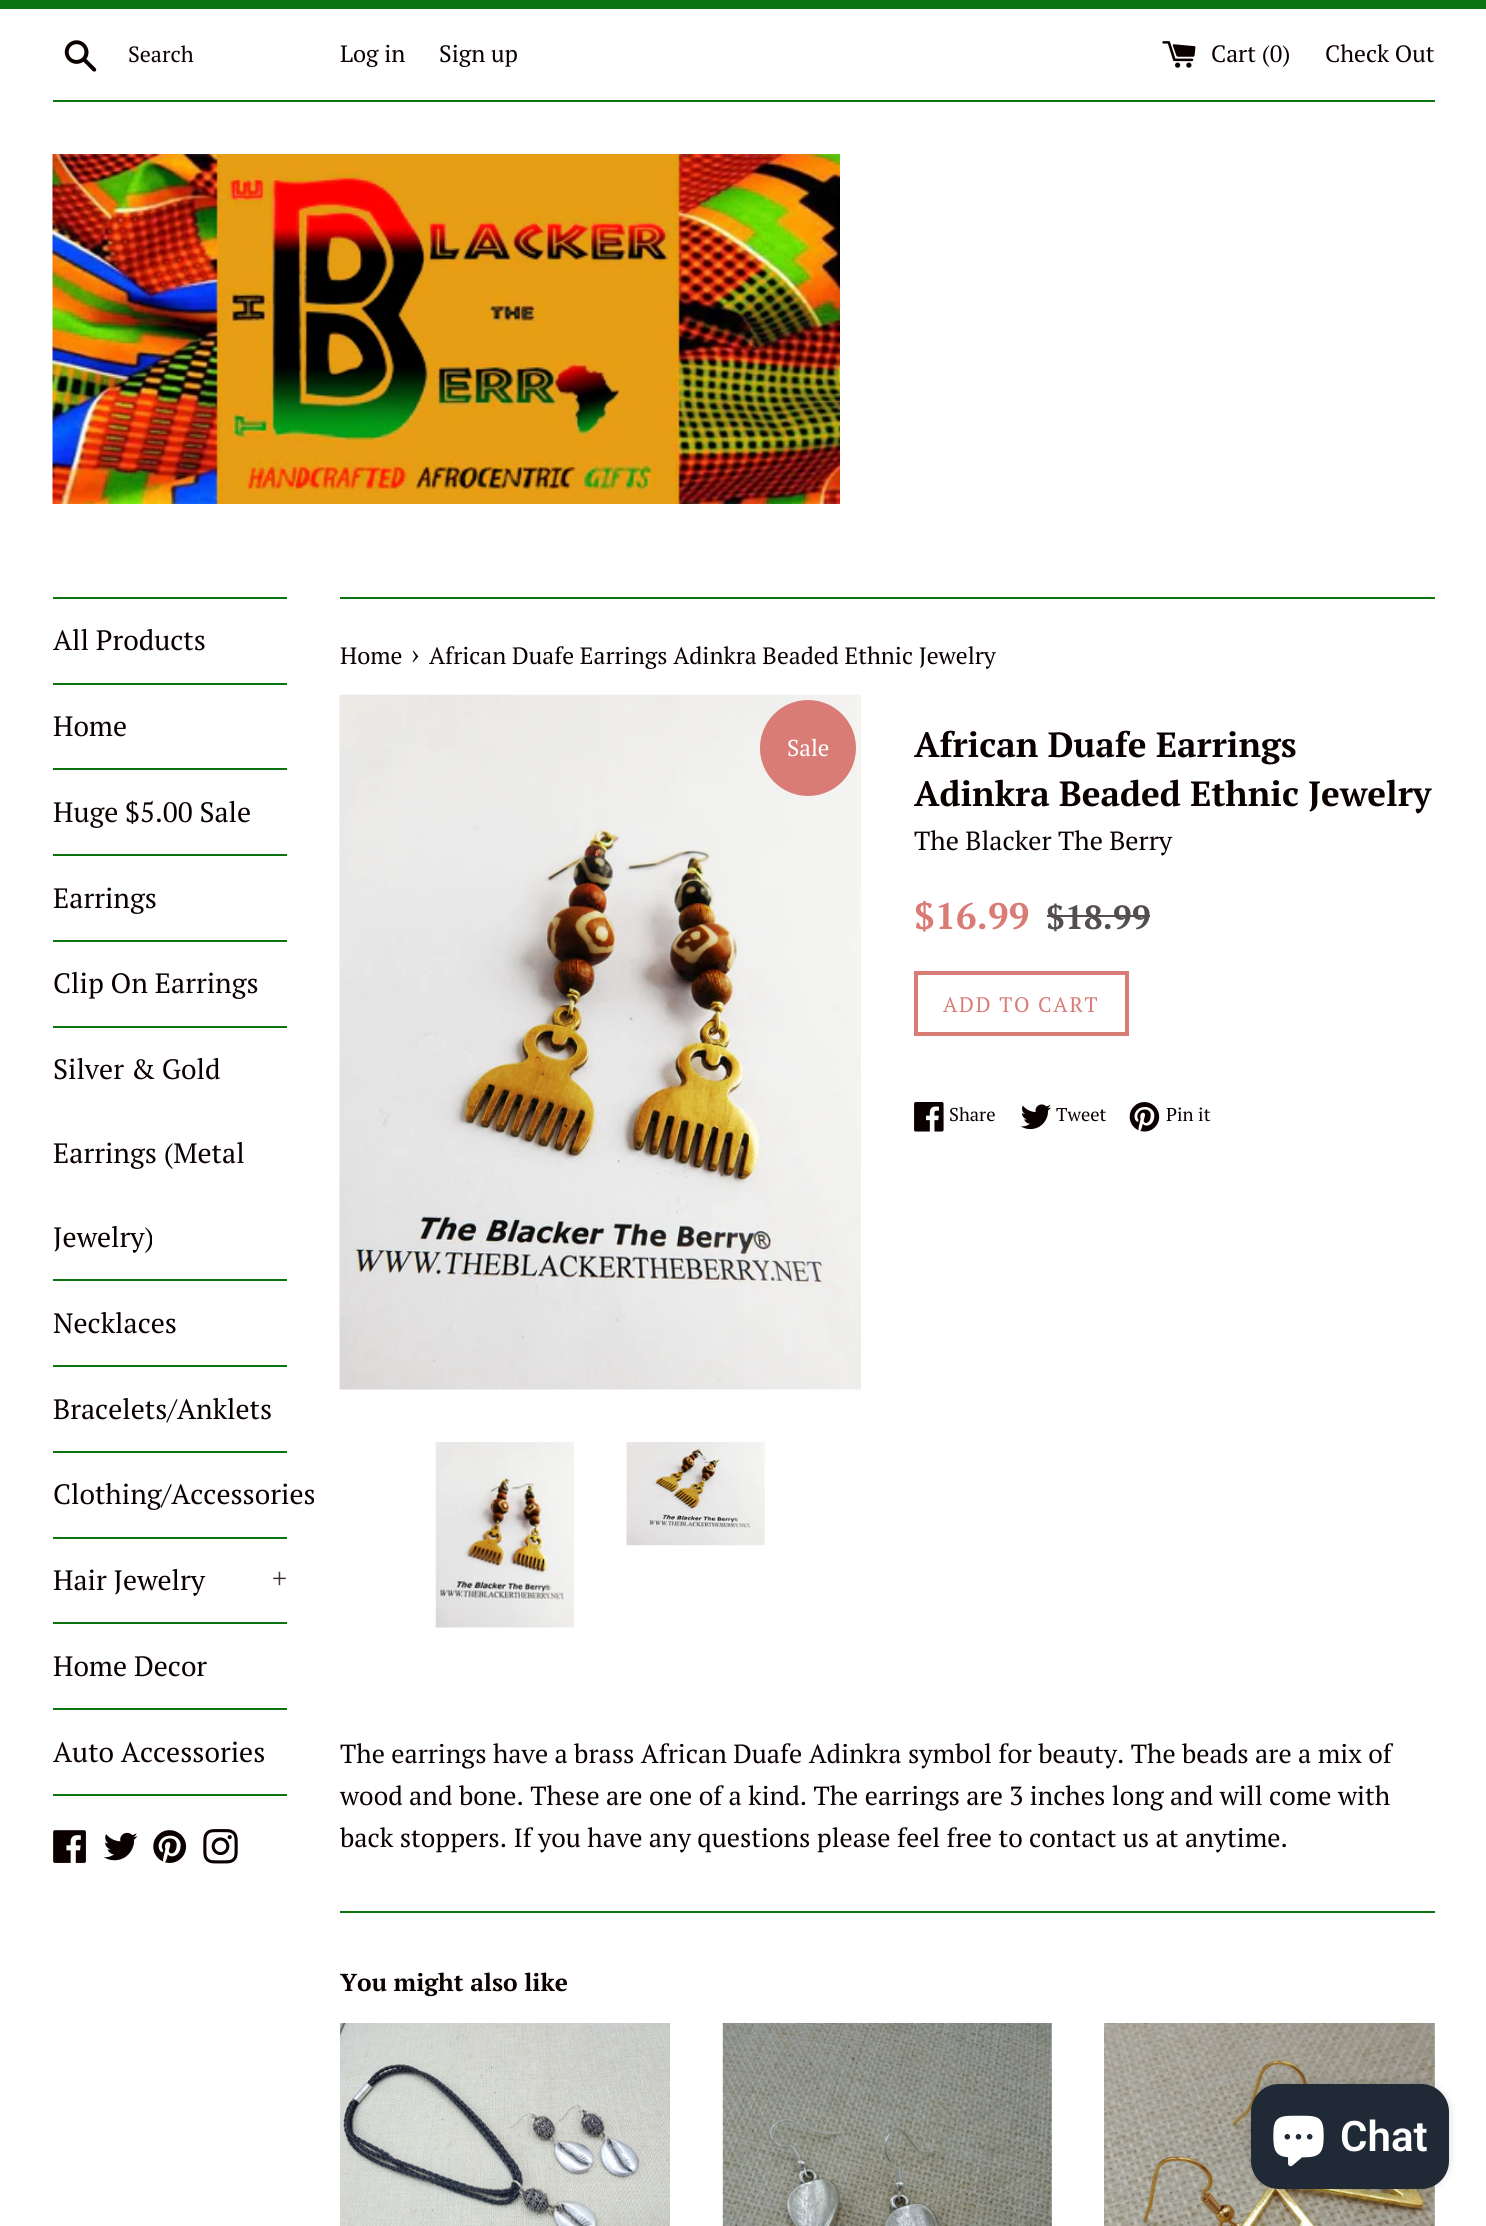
#include <cairo/cairo.h>
#include <math.h>
#include <stddef.h>


static void draw_spaced(cairo_t *cr, double x, double y, const char *s, double letter, double word) {
  cairo_move_to(cr, x, y);
  while (*s) {
    char ch[5] = {0};
    int n = 0;
    do ch[n++] = *s++; while ((*s & 0xC0) == 0x80);
    cairo_show_text(cr, ch);
    cairo_rel_move_to(cr, letter + word * (*ch == ' '), 0);
  }
}

static void rounded_rect(cairo_t *cr, double x, double y, double w, double h, double r) {
  cairo_new_sub_path(cr);
  cairo_arc(cr, x + w - r, y + h - r, r, 0, M_PI / 2);
  cairo_arc(cr, x + r, y + h - r, r, M_PI / 2, M_PI);
  cairo_arc(cr, x + r, y + r, r, M_PI, 1.5 * M_PI);
  cairo_arc(cr, x + w - r, y + r, r, 1.5 * M_PI, 2 * M_PI);
  cairo_close_path(cr);
}

static void draw_shadow(cairo_t *cr, double x, double y, double w, double h, double r, double blur, double alpha) {
  cairo_push_group_with_content(cr, CAIRO_CONTENT_ALPHA);
  cairo_set_operator(cr, CAIRO_OPERATOR_SOURCE);
  for (int i = 15; i >= -15 && fmin(w, h) + blur * i / 3 > 0; i -= 2) {
    double e = blur * i / 6;
    cairo_set_source_rgba(cr, 0, 0, 0, alpha * erfc((i - 1) / 8.5) / 2);
    rounded_rect(cr, x - e, y - e, w + 2 * e, h + 2 * e, fmax(0, fmin(r + e + blur * .6, fmin(w, h) / 2 + e)));
    cairo_fill(cr);
  }
  cairo_pattern_t *soft = cairo_pop_group(cr);
  cairo_mask(cr, soft);
  cairo_pattern_destroy(soft);
}

static void draw_image(cairo_t *cr, const char *path, double x, double y, double w, double h) {
  cairo_surface_t *image = cairo_image_surface_create_from_png(path);
  cairo_save(cr);
  cairo_set_source_surface(cr, image, x, y);
  cairo_rectangle(cr, x, y, w, h);
  cairo_fill(cr);
  cairo_restore(cr);
  cairo_surface_destroy(image);
}

static void draw(cairo_t *cr) {
  cairo_set_source_rgb(cr, 1, 1, 1);
  cairo_paint(cr);
  cairo_set_source_rgb(cr, 10 / 255.0, 116 / 255.0, 17 / 255.0);
  cairo_rectangle(cr, 0, 0, 1486, 9);
  cairo_fill(cr);
  draw_image(cr, "images/1.png", 64, 40, 33, 32);
  draw_image(cr, "images/2.png", 1162, 41, 34, 27);
  cairo_rectangle(cr, 53, 100, 1382, 2);
  cairo_fill(cr);
  draw_image(cr, "images/3.png", 52, 154, 788, 350);
  cairo_rectangle(cr, 53, 597, 234, 2);
  cairo_fill(cr);
  cairo_rectangle(cr, 53, 683, 234, 2);
  cairo_fill(cr);
  cairo_rectangle(cr, 53, 768, 234, 2);
  cairo_fill(cr);
  cairo_rectangle(cr, 53, 854, 234, 2);
  cairo_fill(cr);
  cairo_rectangle(cr, 53, 940, 234, 2);
  cairo_fill(cr);
  cairo_rectangle(cr, 53, 1026, 234, 2);
  cairo_fill(cr);
  cairo_rectangle(cr, 53, 1279, 234, 2);
  cairo_fill(cr);
  cairo_rectangle(cr, 53, 1365, 234, 2);
  cairo_fill(cr);
  cairo_rectangle(cr, 53, 1451, 234, 2);
  cairo_fill(cr);
  cairo_rectangle(cr, 53, 1537, 234, 2);
  cairo_fill(cr);
  cairo_rectangle(cr, 53, 1622, 234, 2);
  cairo_fill(cr);
  cairo_rectangle(cr, 53, 1708, 234, 2);
  cairo_fill(cr);
  cairo_rectangle(cr, 53, 1794, 234, 2);
  cairo_fill(cr);
  draw_image(cr, "images/4.png", 53, 1830, 33, 33);
  draw_image(cr, "images/5.png", 104, 1832, 34, 29);
  draw_image(cr, "images/6.png", 153, 1830, 34, 33);
  draw_image(cr, "images/7.png", 203, 1829, 35, 35);
  cairo_rectangle(cr, 340, 597, 1095, 2);
  cairo_fill(cr);
  draw_image(cr, "images/8.png", 339, 694, 522, 696);
  cairo_set_source_rgb(cr, 217 / 255.0, 124 / 255.0, 118 / 255.0);
  cairo_arc(cr, 808, 748, 48, 0, 2 * M_PI);
  cairo_fill(cr);
  draw_image(cr, "images/9.png", 435, 1442, 139, 186);
  draw_image(cr, "images/10.png", 626, 1442, 139, 104);
  cairo_set_source_rgb(cr, 84 / 255.0, 77 / 255.0, 77 / 255.0);
  cairo_rectangle(cr, 1047, 915, 103, 2);
  cairo_fill(cr);
  cairo_rectangle(cr, 916, 973, 211, 61);
  cairo_set_source_rgb(cr, 217 / 255.0, 124 / 255.0, 118 / 255.0);
  cairo_set_line_width(cr, 4);
  cairo_stroke(cr);
  draw_image(cr, "images/11.png", 914, 1102, 30, 30);
  draw_image(cr, "images/12.png", 1021, 1104, 30, 26);
  draw_image(cr, "images/13.png", 1129, 1102, 31, 30);
  cairo_set_source_rgb(cr, 10 / 255.0, 116 / 255.0, 17 / 255.0);
  cairo_rectangle(cr, 340, 1911, 1095, 2);
  cairo_fill(cr);
  draw_image(cr, "images/14.png", 340, 2023, 330, 203);
  draw_image(cr, "images/15.png", 722, 2023, 330, 203);
  draw_image(cr, "images/16.png", 1104, 2023, 331, 203);
  cairo_set_source_rgb(cr, 0, 0, 0);
  draw_shadow(cr, 1251, 2084, 198, 105, 28, 4.5, 0.15);
  cairo_set_source_rgb(cr, 32 / 255.0, 42 / 255.0, 54 / 255.0);
  rounded_rect(cr, 1251, 2084, 198, 105, 28);
  cairo_fill(cr);
  draw_image(cr, "images/17.png", 1273, 2115, 51, 52);
  cairo_select_font_face(cr, "PT Serif", CAIRO_FONT_SLANT_NORMAL, CAIRO_FONT_WEIGHT_NORMAL);
  cairo_set_font_size(cr, 22);
  cairo_set_source_rgb(cr, 11 / 255.0, 0, 0);
  cairo_move_to(cr, 128, 62);
  cairo_show_text(cr, "Search");
  cairo_set_font_size(cr, 23.6);
  cairo_move_to(cr, 340, 62);
  cairo_show_text(cr, "Log in");
  cairo_move_to(cr, 439, 62);
  cairo_show_text(cr, "Sign up");
  cairo_move_to(cr, 1211, 62);
  cairo_show_text(cr, "Cart (0)");
  cairo_move_to(cr, 1325, 62);
  cairo_show_text(cr, "Check Out");
  cairo_set_font_size(cr, 28);
  cairo_move_to(cr, 53, 650);
  cairo_show_text(cr, "All Products");
  cairo_move_to(cr, 53, 736);
  cairo_show_text(cr, "Home");
  cairo_move_to(cr, 53, 822);
  cairo_show_text(cr, "Huge $5.00 Sale");
  cairo_move_to(cr, 53, 908);
  cairo_show_text(cr, "Earrings");
  cairo_move_to(cr, 53, 993);
  cairo_show_text(cr, "Clip On Earrings");
  cairo_move_to(cr, 53, 1079);
  cairo_show_text(cr, "Silver & Gold");
  cairo_move_to(cr, 53, 1163);
  cairo_show_text(cr, "Earrings (Metal");
  cairo_move_to(cr, 53, 1247);
  cairo_show_text(cr, "Jewelry)");
  cairo_move_to(cr, 53, 1333);
  cairo_show_text(cr, "Necklaces");
  cairo_move_to(cr, 53, 1419);
  cairo_show_text(cr, "Bracelets/Anklets");
  cairo_move_to(cr, 53, 1504);
  cairo_show_text(cr, "Clothing/Accessories");
  cairo_set_source_rgb(cr, 60 / 255.0, 51 / 255.0, 51 / 255.0);
  cairo_move_to(cr, 272, 1588);
  cairo_show_text(cr, "+");
  cairo_set_source_rgb(cr, 11 / 255.0, 0, 0);
  cairo_move_to(cr, 53, 1590);
  cairo_show_text(cr, "Hair Jewelry");
  cairo_move_to(cr, 53, 1676);
  cairo_show_text(cr, "Home Decor");
  cairo_move_to(cr, 53, 1762);
  cairo_show_text(cr, "Auto Accessories");
  cairo_set_font_size(cr, 23.6);
  cairo_move_to(cr, 340, 664);
  cairo_show_text(cr, "Home");
  cairo_set_font_size(cr, 29);
  cairo_move_to(cr, 411, 664);
  cairo_show_text(cr, "›");
  cairo_set_font_size(cr, 23.6);
  cairo_move_to(cr, 429, 664);
  cairo_show_text(cr, "African Duafe Earrings Adinkra Beaded Ethnic Jewelry");
  cairo_set_font_size(cr, 23);
  cairo_set_source_rgb(cr, 1, 1, 1);
  cairo_move_to(cr, 787, 756);
  cairo_show_text(cr, "Sale");
  cairo_select_font_face(cr, "PT Serif", CAIRO_FONT_SLANT_NORMAL, CAIRO_FONT_WEIGHT_BOLD);
  cairo_set_font_size(cr, 35);
  cairo_set_source_rgb(cr, 11 / 255.0, 0, 0);
  cairo_move_to(cr, 914, 757);
  cairo_show_text(cr, "African Duafe Earrings");
  cairo_move_to(cr, 914, 806);
  cairo_show_text(cr, "Adinkra Beaded Ethnic Jewelry");
  cairo_select_font_face(cr, "PT Serif", CAIRO_FONT_SLANT_NORMAL, CAIRO_FONT_WEIGHT_NORMAL);
  cairo_set_font_size(cr, 26.25);
  cairo_move_to(cr, 914, 850);
  cairo_show_text(cr, "The Blacker The Berry");
  cairo_select_font_face(cr, "PT Serif", CAIRO_FONT_SLANT_NORMAL, CAIRO_FONT_WEIGHT_BOLD);
  cairo_set_font_size(cr, 37);
  cairo_set_source_rgb(cr, 217 / 255.0, 124 / 255.0, 118 / 255.0);
  cairo_move_to(cr, 914, 929);
  cairo_show_text(cr, "$16.99");
  cairo_set_font_size(cr, 33.5);
  cairo_set_source_rgb(cr, 84 / 255.0, 77 / 255.0, 77 / 255.0);
  cairo_move_to(cr, 1046, 929);
  cairo_show_text(cr, "$18.99");
  cairo_select_font_face(cr, "PT Serif", CAIRO_FONT_SLANT_NORMAL, CAIRO_FONT_WEIGHT_NORMAL);
  cairo_set_font_size(cr, 21);
  cairo_set_source_rgb(cr, 217 / 255.0, 124 / 255.0, 118 / 255.0);
  draw_spaced(cr, 943, 1012, "ADD TO CART", 1.75, 0);
  cairo_set_font_size(cr, 18.5);
  cairo_set_source_rgb(cr, 11 / 255.0, 0, 0);
  cairo_move_to(cr, 949, 1121);
  cairo_show_text(cr, "Share");
  cairo_move_to(cr, 1056, 1121);
  cairo_show_text(cr, "Tweet");
  cairo_move_to(cr, 1166, 1121);
  cairo_show_text(cr, "Pin it");
  cairo_set_font_size(cr, 26.25);
  cairo_move_to(cr, 340, 1763);
  cairo_show_text(cr, "The earrings have a brass African Duafe Adinkra symbol for beauty. The beads are a mix of");
  cairo_move_to(cr, 340, 1805);
  cairo_show_text(cr, "wood and bone. These are one of a kind. The earrings are 3 inches long and will come with");
  cairo_move_to(cr, 340, 1847);
  cairo_show_text(cr, "back stoppers. If you have any questions please feel free to contact us at anytime.");
  cairo_select_font_face(cr, "PT Serif", CAIRO_FONT_SLANT_NORMAL, CAIRO_FONT_WEIGHT_BOLD);
  cairo_set_font_size(cr, 24.5);
  cairo_move_to(cr, 340, 1991);
  cairo_show_text(cr, "You might also like");
  cairo_select_font_face(cr, "Roboto SemiBold", CAIRO_FONT_SLANT_NORMAL, CAIRO_FONT_WEIGHT_NORMAL);
  cairo_set_font_size(cr, 42);
  cairo_set_source_rgb(cr, 1, 1, 1);
  cairo_move_to(cr, 1340, 2151);
  cairo_show_text(cr, "Chat");
}

int main(void) {
  cairo_surface_t *surface = cairo_image_surface_create(CAIRO_FORMAT_RGB24, 1486, 2226);
  cairo_t *cr = cairo_create(surface);
  cairo_font_options_t *options = cairo_font_options_create();
  cairo_font_options_set_hint_metrics(options, CAIRO_HINT_METRICS_OFF);
  cairo_font_options_set_hint_style(options, CAIRO_HINT_STYLE_NONE);
  cairo_set_font_options(cr, options);
  cairo_set_miter_limit(cr, 4);
  draw(cr);
  cairo_surface_write_to_png(surface, "out.png");
  cairo_font_options_destroy(options);
  cairo_destroy(cr);
  cairo_surface_destroy(surface);
  return 0;
}
